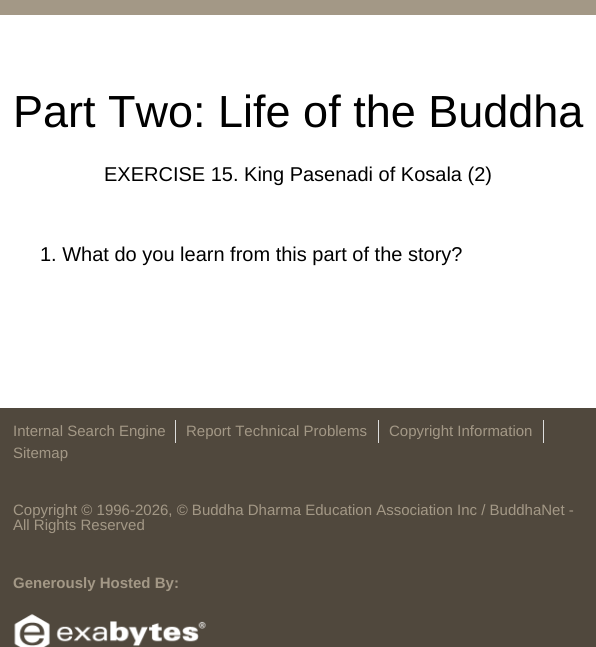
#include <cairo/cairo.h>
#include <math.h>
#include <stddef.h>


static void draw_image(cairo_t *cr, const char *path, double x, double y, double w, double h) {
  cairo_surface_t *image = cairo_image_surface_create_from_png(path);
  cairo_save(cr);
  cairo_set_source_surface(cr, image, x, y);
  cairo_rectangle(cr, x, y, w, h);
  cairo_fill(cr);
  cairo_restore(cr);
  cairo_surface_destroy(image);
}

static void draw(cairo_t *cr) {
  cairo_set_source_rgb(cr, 1, 1, 1);
  cairo_paint(cr);
  cairo_set_source_rgb(cr, 163 / 255.0, 152 / 255.0, 134 / 255.0);
  cairo_rectangle(cr, 0, 0, 596, 15);
  cairo_fill(cr);
  cairo_set_source_rgb(cr, 80 / 255.0, 72 / 255.0, 61 / 255.0);
  cairo_rectangle(cr, 0, 408, 596, 239);
  cairo_fill(cr);
  cairo_set_source_rgb(cr, 221 / 255.0, 221 / 255.0, 221 / 255.0);
  cairo_rectangle(cr, 175, 420, 1, 23);
  cairo_fill(cr);
  cairo_rectangle(cr, 378, 420, 1, 23);
  cairo_fill(cr);
  cairo_rectangle(cr, 543, 420, 1, 23);
  cairo_fill(cr);
  draw_image(cr, "images/1.png", 14, 614, 192, 33);
  cairo_select_font_face(cr, "Liberation Sans", CAIRO_FONT_SLANT_NORMAL, CAIRO_FONT_WEIGHT_NORMAL);
  cairo_set_font_size(cr, 45);
  cairo_set_source_rgb(cr, 0, 0, 0);
  cairo_move_to(cr, 13, 127);
  cairo_show_text(cr, "Part Two: Life of the Buddha");
  cairo_set_font_size(cr, 20);
  cairo_move_to(cr, 104, 181);
  cairo_show_text(cr, "EXERCISE 15. King Pasenadi of Kosala (2)");
  cairo_move_to(cr, 40, 261);
  cairo_show_text(cr, "1. What do you learn from this part of the story?");
  cairo_set_font_size(cr, 15);
  cairo_set_source_rgb(cr, 163 / 255.0, 152 / 255.0, 134 / 255.0);
  cairo_move_to(cr, 13, 436);
  cairo_show_text(cr, "Internal Search Engine");
  cairo_move_to(cr, 186, 436);
  cairo_show_text(cr, "Report Technical Problems");
  cairo_move_to(cr, 389, 436);
  cairo_show_text(cr, "Copyright Information");
  cairo_move_to(cr, 13, 458);
  cairo_show_text(cr, "Sitemap");
  cairo_move_to(cr, 13, 515);
  cairo_show_text(cr, "Copyright © 1996-2026, © Buddha Dharma Education Association Inc / BuddhaNet -");
  cairo_move_to(cr, 13, 530);
  cairo_show_text(cr, "All Rights Reserved");
  cairo_select_font_face(cr, "Liberation Sans", CAIRO_FONT_SLANT_NORMAL, CAIRO_FONT_WEIGHT_BOLD);
  cairo_move_to(cr, 13, 588);
  cairo_show_text(cr, "Generously Hosted By:");
}

int main(void) {
  cairo_surface_t *surface = cairo_image_surface_create(CAIRO_FORMAT_RGB24, 596, 647);
  cairo_t *cr = cairo_create(surface);
  cairo_font_options_t *options = cairo_font_options_create();
  cairo_font_options_set_hint_metrics(options, CAIRO_HINT_METRICS_OFF);
  cairo_font_options_set_hint_style(options, CAIRO_HINT_STYLE_NONE);
  cairo_set_font_options(cr, options);
  cairo_set_miter_limit(cr, 4);
  draw(cr);
  cairo_surface_write_to_png(surface, "out.png");
  cairo_font_options_destroy(options);
  cairo_destroy(cr);
  cairo_surface_destroy(surface);
  return 0;
}
